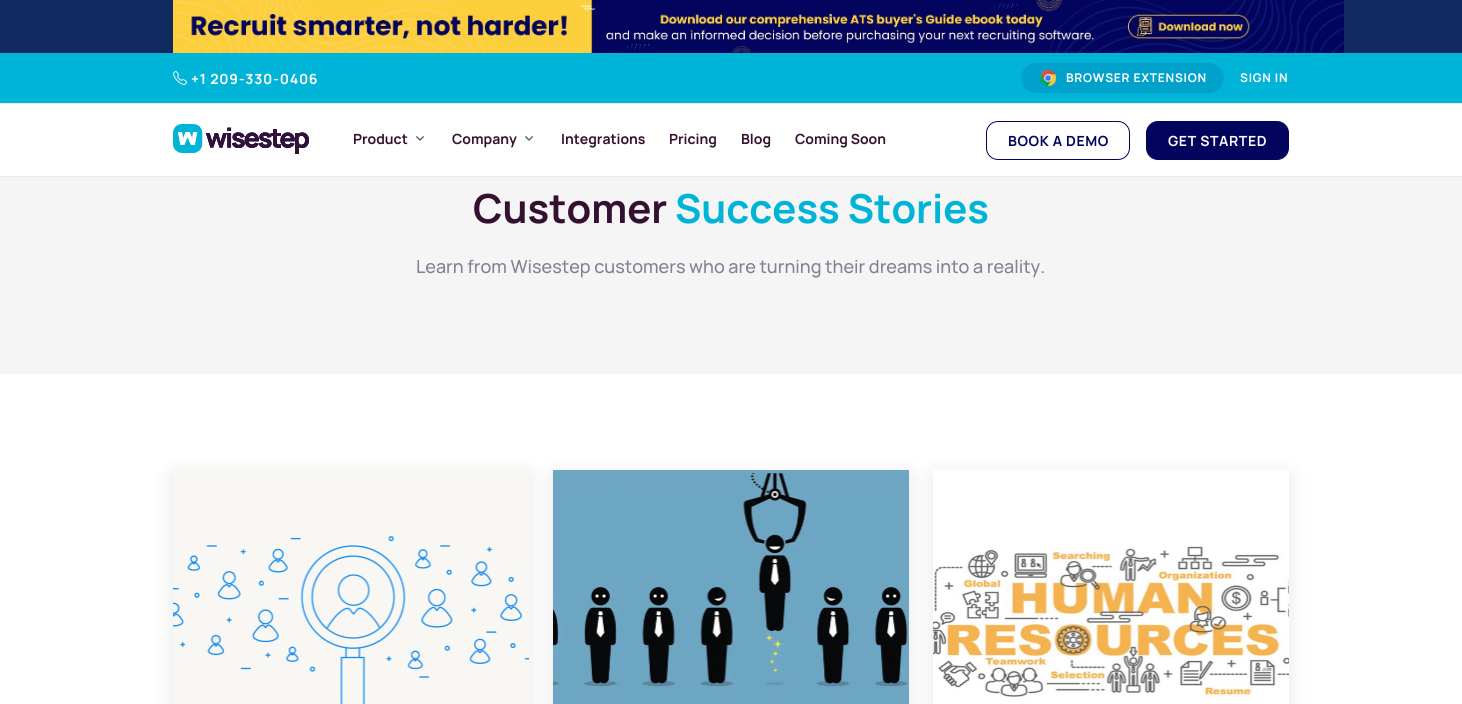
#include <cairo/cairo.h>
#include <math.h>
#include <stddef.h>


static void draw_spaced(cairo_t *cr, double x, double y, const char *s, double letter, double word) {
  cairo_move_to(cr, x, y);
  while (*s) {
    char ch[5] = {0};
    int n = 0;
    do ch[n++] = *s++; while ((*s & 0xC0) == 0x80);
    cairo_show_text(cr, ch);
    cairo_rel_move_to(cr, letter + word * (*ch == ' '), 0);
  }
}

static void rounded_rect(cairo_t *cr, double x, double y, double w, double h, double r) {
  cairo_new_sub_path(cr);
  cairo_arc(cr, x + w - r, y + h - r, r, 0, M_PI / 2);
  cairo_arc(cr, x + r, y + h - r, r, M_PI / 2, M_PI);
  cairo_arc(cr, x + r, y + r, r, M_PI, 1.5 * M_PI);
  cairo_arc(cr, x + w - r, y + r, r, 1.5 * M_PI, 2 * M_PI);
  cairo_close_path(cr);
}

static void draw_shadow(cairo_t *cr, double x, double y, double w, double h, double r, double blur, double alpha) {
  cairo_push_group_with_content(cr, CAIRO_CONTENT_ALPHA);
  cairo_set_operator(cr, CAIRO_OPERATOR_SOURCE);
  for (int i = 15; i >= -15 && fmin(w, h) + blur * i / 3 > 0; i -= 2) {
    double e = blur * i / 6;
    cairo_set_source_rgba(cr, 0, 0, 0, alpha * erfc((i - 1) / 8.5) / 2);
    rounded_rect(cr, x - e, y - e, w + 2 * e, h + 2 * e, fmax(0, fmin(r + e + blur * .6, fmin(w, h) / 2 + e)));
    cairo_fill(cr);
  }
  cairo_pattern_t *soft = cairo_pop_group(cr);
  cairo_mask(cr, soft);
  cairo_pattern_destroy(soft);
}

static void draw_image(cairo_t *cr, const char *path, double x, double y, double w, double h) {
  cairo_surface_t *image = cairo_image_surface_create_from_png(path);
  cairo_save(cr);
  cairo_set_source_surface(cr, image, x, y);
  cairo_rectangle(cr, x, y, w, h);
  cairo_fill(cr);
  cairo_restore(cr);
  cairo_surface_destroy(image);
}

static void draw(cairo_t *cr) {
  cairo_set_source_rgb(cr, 1, 1, 1);
  cairo_paint(cr);
  cairo_set_source_rgb(cr, 0, 180 / 255.0, 216 / 255.0);
  cairo_rectangle(cr, 0, 53, 1462, 50);
  cairo_fill(cr);
  cairo_set_source_rgb(cr, 230 / 255.0, 235 / 255.0, 242 / 255.0);
  cairo_rectangle(cr, 0, 103, 1462, 1);
  cairo_fill(cr);
  cairo_set_source_rgb(cr, 16 / 255.0, 41 / 255.0, 94 / 255.0);
  cairo_rectangle(cr, 0, 0, 1462, 53);
  cairo_fill(cr);
  draw_image(cr, "images/1.png", 173, 0, 1172, 53);
  draw_image(cr, "images/2.png", 173, 71, 14, 14);
  cairo_set_source_rgb(cr, 0, 162 / 255.0, 204 / 255.0);
  rounded_rect(cr, 1021, 63, 203, 30, 15);
  cairo_fill(cr);
  draw_image(cr, "images/3.png", 1039, 69, 18, 18);
  cairo_set_source_rgb(cr, 230 / 255.0, 235 / 255.0, 242 / 255.0);
  cairo_rectangle(cr, 0, 176, 1462, 1);
  cairo_fill(cr);
  draw_image(cr, "images/4.png", 173, 124, 136, 30);
  draw_image(cr, "images/5.png", 416, 136, 8, 5);
  draw_image(cr, "images/5.png", 525, 136, 8, 5);
  rounded_rect(cr, 986.5, 121.5, 143, 38, 11.5);
  cairo_set_source_rgb(cr, 3 / 255.0, 4 / 255.0, 94 / 255.0);
  cairo_set_line_width(cr, 1);
  cairo_stroke(cr);
  rounded_rect(cr, 1146.5, 121.5, 142, 38, 11.5);
  cairo_fill_preserve(cr);
  cairo_stroke(cr);
  cairo_set_source_rgb(cr, 246 / 255.0, 245 / 255.0, 245 / 255.0);
  cairo_rectangle(cr, 0, 177, 1462, 197);
  cairo_fill(cr);
  cairo_set_source_rgb(cr, 0, 0, 0);
  draw_shadow(cr, 173, 475, 356, 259, 0, 10, 0.1);
  draw_image(cr, "images/6.png", 173, 471, 356, 233);
  draw_shadow(cr, 553, 475, 356, 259, 0, 10, 0.1);
  draw_image(cr, "images/7.png", 553, 470, 356, 234);
  cairo_save(cr);
  cairo_set_fill_rule(cr, CAIRO_FILL_RULE_EVEN_ODD);
  cairo_new_path(cr);
  cairo_move_to(cr, 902, 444);
  cairo_line_to(cr, 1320, 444);
  cairo_line_to(cr, 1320, 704);
  cairo_line_to(cr, 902, 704);
  cairo_close_path(cr);
  cairo_move_to(cr, 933, 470);
  cairo_line_to(cr, 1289, 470);
  cairo_line_to(cr, 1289, 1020);
  cairo_line_to(cr, 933, 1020);
  cairo_close_path(cr);
  cairo_clip(cr);
  draw_shadow(cr, 933, 475, 356, 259, 0, 10, 0.1);
  cairo_restore(cr);
  draw_image(cr, "images/8.png", 933, 546, 356, 152);
  cairo_select_font_face(cr, "Manrope", CAIRO_FONT_SLANT_NORMAL, CAIRO_FONT_WEIGHT_BOLD);
  cairo_set_font_size(cr, 14);
  cairo_set_source_rgb(cr, 1, 1, 1);
  draw_spaced(cr, 191, 84, "+1 209-330-0406", 0.75, 0);
  cairo_set_font_size(cr, 12);
  draw_spaced(cr, 1066, 82, "BROWSER EXTENSION", 0.75, 0);
  draw_spaced(cr, 1240, 82, "SIGN IN", 0.75, 0);
  cairo_set_font_size(cr, 14);
  cairo_set_source_rgb(cr, 52 / 255.0, 17 / 255.0, 49 / 255.0);
  cairo_move_to(cr, 353, 144);
  cairo_show_text(cr, "Product");
  cairo_move_to(cr, 452, 144);
  cairo_show_text(cr, "Company");
  cairo_move_to(cr, 561, 144);
  cairo_show_text(cr, "Integrations");
  cairo_move_to(cr, 669, 144);
  cairo_show_text(cr, "Pricing");
  cairo_move_to(cr, 741, 144);
  cairo_show_text(cr, "Blog");
  cairo_move_to(cr, 795, 144);
  cairo_show_text(cr, "Coming Soon");
  cairo_set_source_rgb(cr, 3 / 255.0, 4 / 255.0, 94 / 255.0);
  draw_spaced(cr, 1008, 146, "BOOK A DEMO", 0.6, 0);
  cairo_set_source_rgb(cr, 249 / 255.0, 250 / 255.0, 252 / 255.0);
  draw_spaced(cr, 1168, 146, "GET STARTED", 0.6, 0);
  cairo_set_font_size(cr, 40);
  cairo_set_source_rgb(cr, 52 / 255.0, 17 / 255.0, 49 / 255.0);
  cairo_move_to(cr, 473, 223);
  cairo_show_text(cr, "Customer");
  cairo_set_source_rgb(cr, 0, 180 / 255.0, 216 / 255.0);
  cairo_move_to(cr, 675, 223);
  cairo_show_text(cr, "Success Stories");
  cairo_select_font_face(cr, "Manrope Medium", CAIRO_FONT_SLANT_NORMAL, CAIRO_FONT_WEIGHT_NORMAL);
  cairo_set_font_size(cr, 18);
  cairo_set_source_rgb(cr, 127 / 255.0, 132 / 255.0, 148 / 255.0);
  cairo_move_to(cr, 416, 273);
  cairo_show_text(cr, "Learn from Wisestep customers who are turning their dreams into a reality.");
}

int main(void) {
  cairo_surface_t *surface = cairo_image_surface_create(CAIRO_FORMAT_RGB24, 1462, 704);
  cairo_t *cr = cairo_create(surface);
  cairo_font_options_t *options = cairo_font_options_create();
  cairo_font_options_set_hint_metrics(options, CAIRO_HINT_METRICS_OFF);
  cairo_font_options_set_hint_style(options, CAIRO_HINT_STYLE_NONE);
  cairo_set_font_options(cr, options);
  cairo_set_miter_limit(cr, 4);
  draw(cr);
  cairo_surface_write_to_png(surface, "out.png");
  cairo_font_options_destroy(options);
  cairo_destroy(cr);
  cairo_surface_destroy(surface);
  return 0;
}
